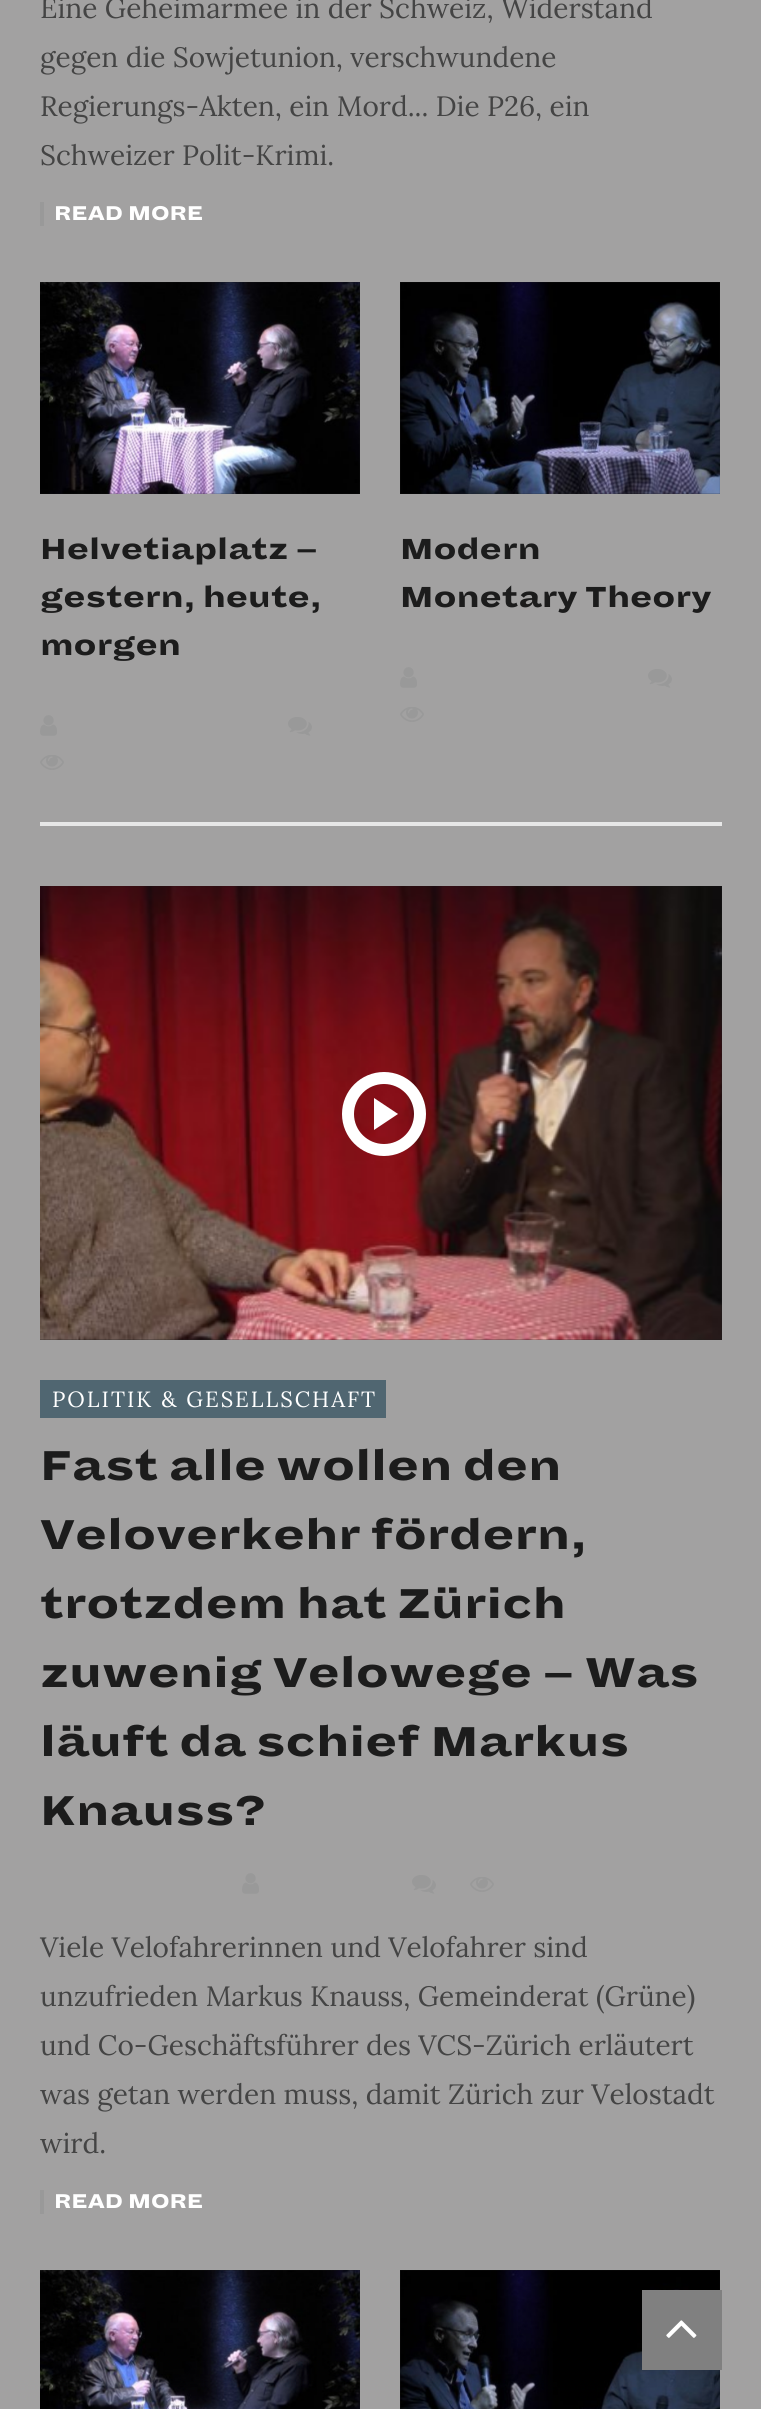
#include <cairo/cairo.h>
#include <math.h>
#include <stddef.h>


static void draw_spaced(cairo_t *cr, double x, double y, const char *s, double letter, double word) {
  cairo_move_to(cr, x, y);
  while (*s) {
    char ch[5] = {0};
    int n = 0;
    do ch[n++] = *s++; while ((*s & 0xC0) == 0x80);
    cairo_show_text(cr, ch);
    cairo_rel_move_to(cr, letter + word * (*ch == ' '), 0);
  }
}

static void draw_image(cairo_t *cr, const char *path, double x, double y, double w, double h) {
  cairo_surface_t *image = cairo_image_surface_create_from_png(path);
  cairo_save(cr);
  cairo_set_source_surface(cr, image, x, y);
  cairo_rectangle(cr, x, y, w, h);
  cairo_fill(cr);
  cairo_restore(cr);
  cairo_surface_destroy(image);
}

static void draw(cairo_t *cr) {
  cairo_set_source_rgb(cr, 162 / 255.0, 161 / 255.0, 161 / 255.0);
  cairo_paint(cr);
  cairo_set_source_rgb(cr, 231 / 255.0, 231 / 255.0, 231 / 255.0);
  cairo_rectangle(cr, 40, 822, 682, 4);
  cairo_fill(cr);
  cairo_set_source_rgb(cr, 153 / 255.0, 153 / 255.0, 153 / 255.0);
  cairo_rectangle(cr, 40, 202, 4, 24);
  cairo_fill(cr);
  cairo_set_source_rgb(cr, 28 / 255.0, 28 / 255.0, 28 / 255.0);
  cairo_rectangle(cr, 40, 282, 320, 212);
  cairo_fill(cr);
  draw_image(cr, "images/1.png", 40, 282, 320, 212);
  draw_image(cr, "images/2.png", 40, 715, 17, 21);
  draw_image(cr, "images/3.png", 288, 717, 24, 19);
  draw_image(cr, "images/4.png", 40, 755, 24, 15);
  cairo_rectangle(cr, 400, 282, 320, 212);
  cairo_fill(cr);
  draw_image(cr, "images/5.png", 400, 282, 320, 212);
  draw_image(cr, "images/2.png", 400, 667, 17, 21);
  draw_image(cr, "images/3.png", 648, 669, 24, 19);
  draw_image(cr, "images/4.png", 400, 707, 24, 15);
  cairo_rectangle(cr, 40, 886, 682, 454);
  cairo_fill(cr);
  draw_image(cr, "images/6.png", 40, 886, 682, 454);
  cairo_arc(cr, 384, 1114, 36, 0, 2 * M_PI);
  cairo_set_source_rgb(cr, 1, 1, 1);
  cairo_set_line_width(cr, 12);
  cairo_stroke(cr);
  cairo_new_path(cr);
  cairo_move_to(cr, 374, 1130);
  cairo_line_to(cr, 374, 1098);
  cairo_line_to(cr, 398, 1114);
  cairo_close_path(cr);
  cairo_fill(cr);
  cairo_set_source_rgb(cr, 80 / 255.0, 102 / 255.0, 113 / 255.0);
  cairo_rectangle(cr, 40, 1380, 346, 38);
  cairo_fill(cr);
  draw_image(cr, "images/2.png", 242, 1873, 17, 21);
  draw_image(cr, "images/3.png", 412, 1875, 24, 19);
  draw_image(cr, "images/4.png", 470, 1877, 24, 15);
  cairo_set_source_rgb(cr, 153 / 255.0, 153 / 255.0, 153 / 255.0);
  cairo_rectangle(cr, 40, 2190, 4, 24);
  cairo_fill(cr);
  cairo_set_source_rgb(cr, 28 / 255.0, 28 / 255.0, 28 / 255.0);
  cairo_rectangle(cr, 40, 2270, 320, 139);
  cairo_fill(cr);
  draw_image(cr, "images/7.png", 40, 2270, 320, 139);
  cairo_rectangle(cr, 400, 2270, 320, 139);
  cairo_fill(cr);
  draw_image(cr, "images/8.png", 400, 2270, 320, 139);
  cairo_set_source_rgb(cr, 128 / 255.0, 128 / 255.0, 128 / 255.0);
  cairo_rectangle(cr, 642, 2290, 80, 80);
  cairo_fill(cr);
  draw_image(cr, "images/9.png", 666, 2320, 31, 18);
  cairo_select_font_face(cr, "Lora", CAIRO_FONT_SLANT_NORMAL, CAIRO_FONT_WEIGHT_NORMAL);
  cairo_set_font_size(cr, 28);
  cairo_set_source_rgb(cr, 68 / 255.0, 68 / 255.0, 68 / 255.0);
  cairo_move_to(cr, 40, 18);
  cairo_show_text(cr, "Eine Geheimarmee in der Schweiz, Widerstand");
  cairo_move_to(cr, 40, 67);
  cairo_show_text(cr, "gegen die Sowjetunion, verschwundene");
  cairo_move_to(cr, 40, 116);
  cairo_show_text(cr, "Regierungs-Akten, ein Mord... Die P26, ein");
  cairo_move_to(cr, 40, 165);
  cairo_show_text(cr, "Schweizer Polit-Krimi.");
  cairo_select_font_face(cr, "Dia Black", CAIRO_FONT_SLANT_NORMAL, CAIRO_FONT_WEIGHT_NORMAL);
  cairo_set_font_size(cr, 22);
  cairo_set_source_rgb(cr, 1, 1, 1);
  cairo_move_to(cr, 54, 220);
  cairo_show_text(cr, "READ MORE");
  cairo_set_font_size(cr, 32);
  cairo_set_source_rgb(cr, 28 / 255.0, 28 / 255.0, 28 / 255.0);
  cairo_move_to(cr, 40, 559);
  cairo_show_text(cr, "Helvetiaplatz –");
  cairo_move_to(cr, 40, 607);
  cairo_show_text(cr, "gestern, heute,");
  cairo_move_to(cr, 40, 655);
  cairo_show_text(cr, "morgen");
  cairo_move_to(cr, 400, 559);
  cairo_show_text(cr, "Modern");
  cairo_move_to(cr, 400, 607);
  cairo_show_text(cr, "Monetary Theory");
  cairo_select_font_face(cr, "Lora", CAIRO_FONT_SLANT_NORMAL, CAIRO_FONT_WEIGHT_NORMAL);
  cairo_set_font_size(cr, 22);
  cairo_set_source_rgb(cr, 1, 1, 1);
  draw_spaced(cr, 52, 1407, "POLITIK & GESELLSCHAFT", 2, 0);
  cairo_select_font_face(cr, "Dia Black", CAIRO_FONT_SLANT_NORMAL, CAIRO_FONT_WEIGHT_NORMAL);
  cairo_set_font_size(cr, 46);
  cairo_set_source_rgb(cr, 28 / 255.0, 28 / 255.0, 28 / 255.0);
  cairo_move_to(cr, 40, 1480);
  cairo_show_text(cr, "Fast alle wollen den");
  cairo_move_to(cr, 40, 1549);
  cairo_show_text(cr, "Veloverkehr fördern,");
  cairo_move_to(cr, 40, 1618);
  cairo_show_text(cr, "trotzdem hat Zürich");
  cairo_move_to(cr, 40, 1687);
  cairo_show_text(cr, "zuwenig Velowege – Was");
  cairo_move_to(cr, 40, 1756);
  cairo_show_text(cr, "läuft da schief Markus");
  cairo_move_to(cr, 40, 1825);
  cairo_show_text(cr, "Knauss?");
  cairo_select_font_face(cr, "Lora", CAIRO_FONT_SLANT_NORMAL, CAIRO_FONT_WEIGHT_NORMAL);
  cairo_set_font_size(cr, 28);
  cairo_set_source_rgb(cr, 68 / 255.0, 68 / 255.0, 68 / 255.0);
  cairo_move_to(cr, 40, 1957);
  cairo_show_text(cr, "Viele Velofahrerinnen und Velofahrer sind");
  cairo_move_to(cr, 40, 2006);
  cairo_show_text(cr, "unzufrieden Markus Knauss, Gemeinderat (Grüne)");
  cairo_move_to(cr, 40, 2055);
  cairo_show_text(cr, "und Co-Geschäftsführer des VCS-Zürich erläutert");
  cairo_move_to(cr, 40, 2104);
  cairo_show_text(cr, "was getan werden muss, damit Zürich zur Velostadt");
  cairo_move_to(cr, 40, 2153);
  cairo_show_text(cr, "wird.");
  cairo_select_font_face(cr, "Dia Black", CAIRO_FONT_SLANT_NORMAL, CAIRO_FONT_WEIGHT_NORMAL);
  cairo_set_font_size(cr, 22);
  cairo_set_source_rgb(cr, 1, 1, 1);
  cairo_move_to(cr, 54, 2208);
  cairo_show_text(cr, "READ MORE");
}

int main(void) {
  cairo_surface_t *surface = cairo_image_surface_create(CAIRO_FORMAT_RGB24, 761, 2409);
  cairo_t *cr = cairo_create(surface);
  cairo_font_options_t *options = cairo_font_options_create();
  cairo_font_options_set_hint_metrics(options, CAIRO_HINT_METRICS_OFF);
  cairo_font_options_set_hint_style(options, CAIRO_HINT_STYLE_NONE);
  cairo_set_font_options(cr, options);
  cairo_set_miter_limit(cr, 4);
  draw(cr);
  cairo_surface_write_to_png(surface, "out.png");
  cairo_font_options_destroy(options);
  cairo_destroy(cr);
  cairo_surface_destroy(surface);
  return 0;
}
